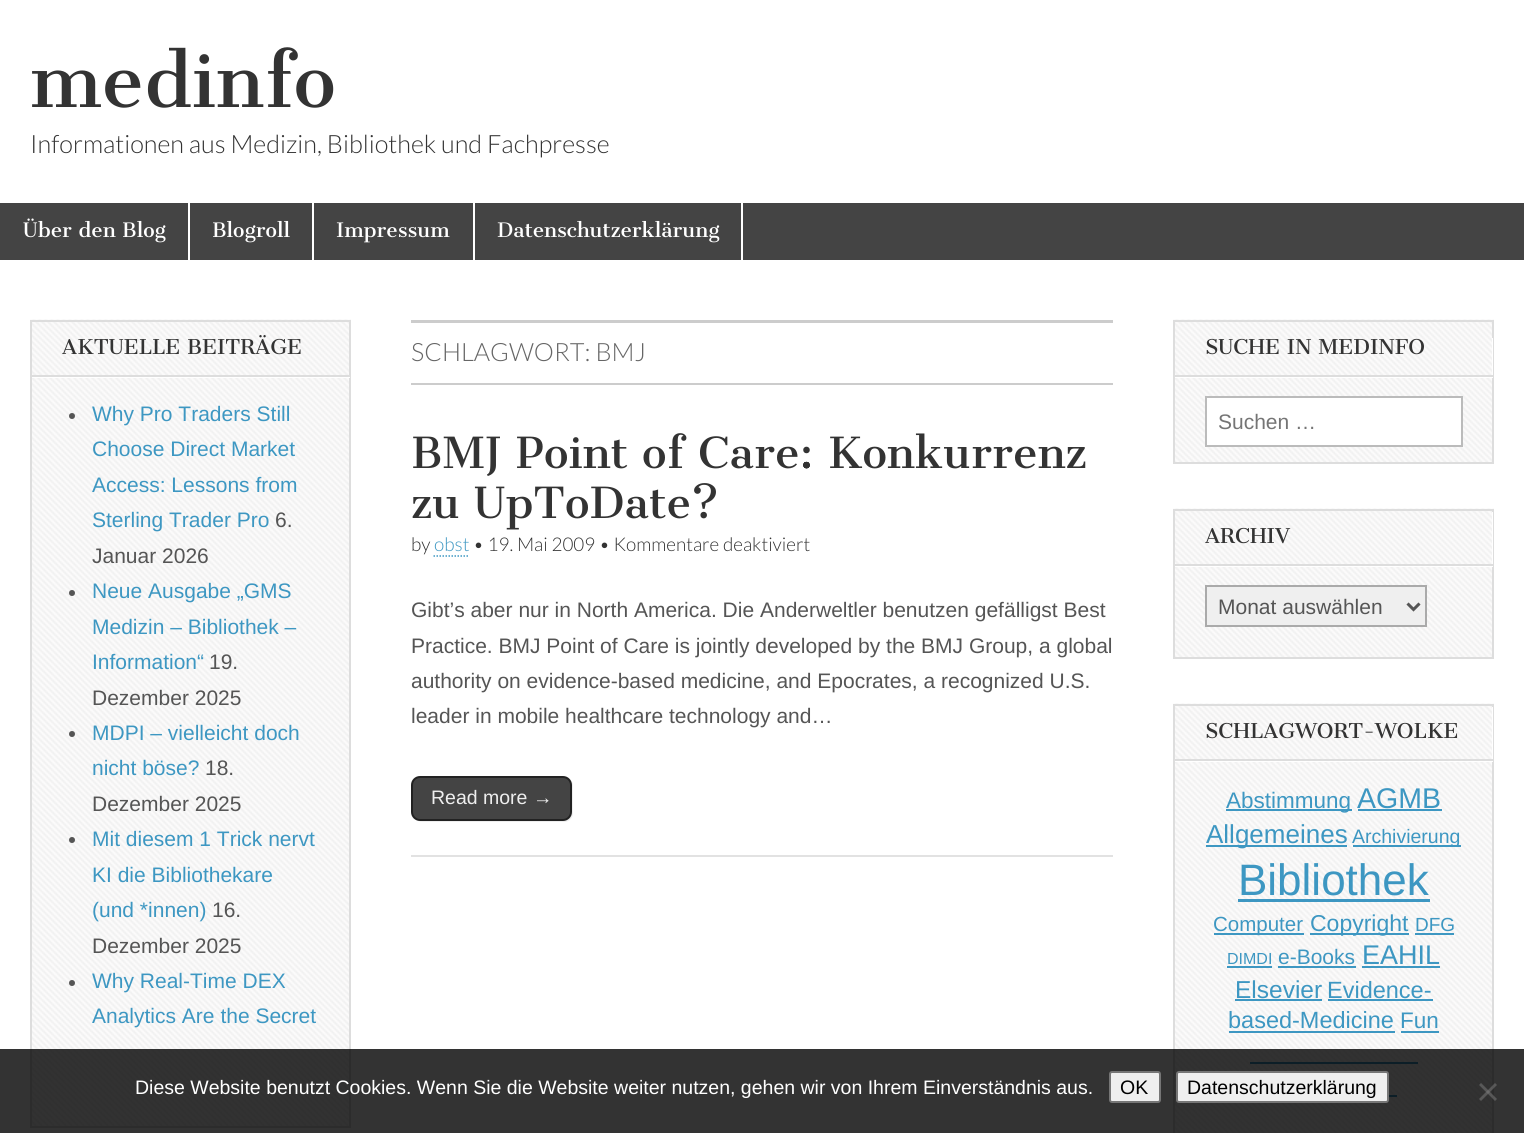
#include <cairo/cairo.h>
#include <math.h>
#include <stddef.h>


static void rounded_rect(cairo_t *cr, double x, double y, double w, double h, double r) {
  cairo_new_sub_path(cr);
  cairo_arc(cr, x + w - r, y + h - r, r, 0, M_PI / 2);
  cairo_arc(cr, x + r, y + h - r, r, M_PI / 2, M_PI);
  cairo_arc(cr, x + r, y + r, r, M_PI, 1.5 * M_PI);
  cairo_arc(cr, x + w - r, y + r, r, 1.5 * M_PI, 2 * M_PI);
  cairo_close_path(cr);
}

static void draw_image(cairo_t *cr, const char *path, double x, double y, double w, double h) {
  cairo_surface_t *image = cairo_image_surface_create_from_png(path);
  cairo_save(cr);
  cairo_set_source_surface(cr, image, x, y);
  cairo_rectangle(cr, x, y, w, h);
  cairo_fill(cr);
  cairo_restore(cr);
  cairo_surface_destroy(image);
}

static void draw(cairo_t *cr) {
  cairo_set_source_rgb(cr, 1, 1, 1);
  cairo_paint(cr);
  cairo_set_source_rgb(cr, 68 / 255.0, 68 / 255.0, 68 / 255.0);
  cairo_rectangle(cr, 0, 203, 1524, 57);
  cairo_fill(cr);
  cairo_set_source_rgb(cr, 1, 1, 1);
  cairo_rectangle(cr, 188, 203, 2, 57);
  cairo_fill(cr);
  cairo_rectangle(cr, 312, 203, 2, 57);
  cairo_fill(cr);
  cairo_rectangle(cr, 473, 203, 2, 57);
  cairo_fill(cr);
  cairo_rectangle(cr, 741, 203, 2, 57);
  cairo_fill(cr);
  draw_image(cr, "images/1.png", 30, 319, 321, 807);
  cairo_rectangle(cr, 31, 321, 319, 806);
  cairo_set_source_rgb(cr, 221 / 255.0, 221 / 255.0, 221 / 255.0);
  cairo_stroke(cr);
  cairo_set_source_rgb(cr, 1, 1, 1);
  cairo_new_path(cr);
  cairo_move_to(cr, 32, 376);
  cairo_line_to(cr, 32, 378);
  cairo_line_to(cr, 350, 378);
  cairo_line_to(cr, 350, 323);
  cairo_line_to(cr, 350, 376);
  cairo_close_path(cr);
  cairo_fill(cr);
  cairo_set_source_rgb(cr, 221 / 255.0, 221 / 255.0, 221 / 255.0);
  cairo_rectangle(cr, 32, 375, 318, 2);
  cairo_fill(cr);
  cairo_set_source_rgb(cr, 85 / 255.0, 85 / 255.0, 85 / 255.0);
  cairo_arc(cr, 72, 416, 3, 0, 2 * M_PI);
  cairo_fill(cr);
  cairo_arc(cr, 72, 593, 3, 0, 2 * M_PI);
  cairo_fill(cr);
  cairo_arc(cr, 72, 734, 3, 0, 2 * M_PI);
  cairo_fill(cr);
  cairo_arc(cr, 72, 840, 3, 0, 2 * M_PI);
  cairo_fill(cr);
  cairo_arc(cr, 72, 983, 3, 0, 2 * M_PI);
  cairo_fill(cr);
  cairo_set_source_rgb(cr, 204 / 255.0, 204 / 255.0, 204 / 255.0);
  cairo_rectangle(cr, 411, 320, 702, 3);
  cairo_fill(cr);
  cairo_rectangle(cr, 411, 383, 702, 2);
  cairo_fill(cr);
  cairo_new_path(cr);
  cairo_move_to(cr, 433.5, 556);
  cairo_line_to(cr, 469.5, 556);
  cairo_set_source_rgb(cr, 61 / 255.0, 151 / 255.0, 194 / 255.0);
  cairo_set_line_width(cr, 1.5);
  cairo_set_dash(cr, (double[]){1.5, 1.5}, 2, 0);
  cairo_stroke(cr);
  cairo_set_source_rgb(cr, 226 / 255.0, 226 / 255.0, 226 / 255.0);
  cairo_rectangle(cr, 411, 855, 702, 2);
  cairo_fill(cr);
  cairo_set_source_rgb(cr, 238 / 255.0, 238 / 255.0, 238 / 255.0);
  cairo_new_path(cr);
  cairo_move_to(cr, 416, 819);
  cairo_curve_to(cr, 417, 821, 420, 822, 422, 822);
  cairo_line_to(cr, 564, 822);
  cairo_curve_to(cr, 569, 822, 573, 818, 573, 813);
  cairo_line_to(cr, 573, 786);
  cairo_curve_to(cr, 573, 783, 572, 781, 570, 779);
  cairo_curve_to(cr, 571, 780, 572, 782, 572, 784);
  cairo_line_to(cr, 572, 812);
  cairo_curve_to(cr, 572, 816, 567, 820, 562, 820);
  cairo_line_to(cr, 420, 820);
  cairo_curve_to(cr, 418, 820, 417, 820, 416, 819);
  cairo_close_path(cr);
  cairo_fill(cr);
  cairo_set_source_rgb(cr, 68 / 255.0, 68 / 255.0, 68 / 255.0);
  rounded_rect(cr, 412, 777, 159, 43, 8);
  cairo_fill_preserve(cr);
  cairo_set_source_rgb(cr, 34 / 255.0, 34 / 255.0, 34 / 255.0);
  cairo_set_line_width(cr, 2);
  cairo_set_dash(cr, NULL, 0, 0);
  cairo_stroke(cr);
  draw_image(cr, "images/2.png", 1173, 319, 321, 143);
  cairo_rectangle(cr, 1174, 321, 319, 142);
  cairo_set_source_rgb(cr, 221 / 255.0, 221 / 255.0, 221 / 255.0);
  cairo_stroke(cr);
  cairo_set_source_rgb(cr, 1, 1, 1);
  cairo_new_path(cr);
  cairo_move_to(cr, 1175, 376);
  cairo_line_to(cr, 1175, 378);
  cairo_line_to(cr, 1493, 378);
  cairo_line_to(cr, 1493, 338);
  cairo_line_to(cr, 1492, 338);
  cairo_line_to(cr, 1492, 376);
  cairo_close_path(cr);
  cairo_fill(cr);
  cairo_set_source_rgb(cr, 221 / 255.0, 221 / 255.0, 221 / 255.0);
  cairo_rectangle(cr, 1175, 375, 318, 2);
  cairo_fill(cr);
  cairo_set_source_rgb(cr, 1, 1, 1);
  cairo_rectangle(cr, 1206, 397, 256, 49);
  cairo_fill_preserve(cr);
  cairo_set_source_rgb(cr, 187 / 255.0, 187 / 255.0, 187 / 255.0);
  cairo_stroke(cr);
  draw_image(cr, "images/3.png", 1173, 508, 321, 149);
  cairo_rectangle(cr, 1174, 510, 319, 148);
  cairo_set_source_rgb(cr, 221 / 255.0, 221 / 255.0, 221 / 255.0);
  cairo_stroke(cr);
  cairo_set_source_rgb(cr, 1, 1, 1);
  cairo_new_path(cr);
  cairo_move_to(cr, 1175, 566);
  cairo_line_to(cr, 1175, 567);
  cairo_line_to(cr, 1493, 567);
  cairo_line_to(cr, 1493, 512);
  cairo_line_to(cr, 1492, 512);
  cairo_line_to(cr, 1492, 566);
  cairo_close_path(cr);
  cairo_fill(cr);
  cairo_set_source_rgb(cr, 221 / 255.0, 221 / 255.0, 221 / 255.0);
  cairo_rectangle(cr, 1175, 564, 318, 2);
  cairo_fill(cr);
  cairo_set_source_rgb(cr, 239 / 255.0, 239 / 255.0, 239 / 255.0);
  cairo_rectangle(cr, 1206, 586, 220, 40);
  cairo_fill_preserve(cr);
  cairo_set_source_rgb(cr, 170 / 255.0, 170 / 255.0, 170 / 255.0);
  cairo_stroke(cr);
  cairo_new_path(cr);
  cairo_move_to(cr, 1407.5, 603.5);
  cairo_line_to(cr, 1413.5, 609.5);
  cairo_line_to(cr, 1419.5, 603.5);
  cairo_set_source_rgb(cr, 85 / 255.0, 85 / 255.0, 85 / 255.0);
  cairo_set_line_width(cr, 3);
  cairo_stroke(cr);
  draw_image(cr, "images/4.png", 1173, 703, 321, 430);
  cairo_rectangle(cr, 1174, 705, 319, 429);
  cairo_set_source_rgb(cr, 221 / 255.0, 221 / 255.0, 221 / 255.0);
  cairo_set_line_width(cr, 2);
  cairo_stroke(cr);
  cairo_set_source_rgb(cr, 1, 1, 1);
  cairo_new_path(cr);
  cairo_move_to(cr, 1175, 760);
  cairo_line_to(cr, 1175, 762);
  cairo_line_to(cr, 1493, 762);
  cairo_line_to(cr, 1493, 707);
  cairo_line_to(cr, 1492, 707);
  cairo_line_to(cr, 1492, 760);
  cairo_close_path(cr);
  cairo_fill(cr);
  cairo_set_source_rgb(cr, 221 / 255.0, 221 / 255.0, 221 / 255.0);
  cairo_rectangle(cr, 1175, 759, 318, 2);
  cairo_fill(cr);
  cairo_set_source_rgb(cr, 61 / 255.0, 151 / 255.0, 194 / 255.0);
  cairo_rectangle(cr, 1226, 809, 126, 2);
  cairo_fill(cr);
  cairo_rectangle(cr, 1358, 809, 84, 2);
  cairo_fill(cr);
  cairo_rectangle(cr, 1206, 845, 141, 2);
  cairo_fill(cr);
  cairo_rectangle(cr, 1353, 845, 108, 2);
  cairo_fill(cr);
  cairo_rectangle(cr, 1238, 899, 192, 3);
  cairo_fill(cr);
  cairo_rectangle(cr, 1214, 933, 90, 2);
  cairo_fill(cr);
  cairo_rectangle(cr, 1310, 933, 99, 2);
  cairo_fill(cr);
  cairo_rectangle(cr, 1415, 933, 39, 2);
  cairo_fill(cr);
  cairo_rectangle(cr, 1227, 966, 45, 2);
  cairo_fill(cr);
  cairo_rectangle(cr, 1278, 966, 78, 2);
  cairo_fill(cr);
  cairo_rectangle(cr, 1362, 966, 78, 2);
  cairo_fill(cr);
  cairo_rectangle(cr, 1235, 999, 87, 2);
  cairo_fill(cr);
  cairo_rectangle(cr, 1328, 999, 105, 2);
  cairo_fill(cr);
  cairo_rectangle(cr, 1229, 1031, 166, 2);
  cairo_fill(cr);
  cairo_rectangle(cr, 1401, 1031, 38, 2);
  cairo_fill(cr);
  cairo_rectangle(cr, 1250, 1062, 168, 2);
  cairo_fill(cr);
  cairo_rectangle(cr, 1389, 1095, 8, 2);
  cairo_fill(cr);
  cairo_set_source_rgba(cr, 0, 0, 0, 0.8);
  cairo_rectangle(cr, 0, 1049, 1524, 84);
  cairo_fill(cr);
  cairo_set_source_rgb(cr, 239 / 255.0, 239 / 255.0, 239 / 255.0);
  rounded_rect(cr, 1110, 1072, 50, 30, 2);
  cairo_fill_preserve(cr);
  cairo_set_source_rgb(cr, 118 / 255.0, 118 / 255.0, 118 / 255.0);
  cairo_stroke(cr);
  cairo_set_source_rgb(cr, 239 / 255.0, 239 / 255.0, 239 / 255.0);
  rounded_rect(cr, 1177, 1072, 211, 30, 2);
  cairo_fill_preserve(cr);
  cairo_set_source_rgb(cr, 118 / 255.0, 118 / 255.0, 118 / 255.0);
  cairo_stroke(cr);
  cairo_set_source_rgba(cr, 128 / 255.0, 128 / 255.0, 128 / 255.0, 0.5);
  cairo_new_path(cr);
  cairo_move_to(cr, 1495, 1083);
  cairo_line_to(cr, 1497, 1085);
  cairo_line_to(cr, 1481, 1101);
  cairo_line_to(cr, 1479, 1099);
  cairo_close_path(cr);
  cairo_fill(cr);
  cairo_new_path(cr);
  cairo_move_to(cr, 1479, 1085);
  cairo_line_to(cr, 1481, 1083);
  cairo_line_to(cr, 1497, 1099);
  cairo_line_to(cr, 1495, 1101);
  cairo_close_path(cr);
  cairo_fill(cr);
  cairo_select_font_face(cr, "Cantata One", CAIRO_FONT_SLANT_NORMAL, CAIRO_FONT_WEIGHT_NORMAL);
  cairo_set_font_size(cr, 72);
  cairo_set_source_rgb(cr, 51 / 255.0, 51 / 255.0, 51 / 255.0);
  cairo_move_to(cr, 30, 107);
  cairo_show_text(cr, "medinfo");
  cairo_select_font_face(cr, "Lato Light", CAIRO_FONT_SLANT_NORMAL, CAIRO_FONT_WEIGHT_NORMAL);
  cairo_set_font_size(cr, 25.2);
  cairo_move_to(cr, 30, 153);
  cairo_show_text(cr, "Informationen aus Medizin, Bibliothek und Fachpresse");
  cairo_select_font_face(cr, "Cantata One", CAIRO_FONT_SLANT_NORMAL, CAIRO_FONT_WEIGHT_NORMAL);
  cairo_set_font_size(cr, 19.5);
  cairo_set_source_rgb(cr, 1, 1, 1);
  cairo_move_to(cr, 23, 237);
  cairo_show_text(cr, "Über den Blog");
  cairo_move_to(cr, 212, 237);
  cairo_show_text(cr, "Blogroll");
  cairo_move_to(cr, 336, 237);
  cairo_show_text(cr, "Impressum");
  cairo_move_to(cr, 497, 237);
  cairo_show_text(cr, "Datenschutzerklärung");
  cairo_set_font_size(cr, 20);
  cairo_set_source_rgb(cr, 51 / 255.0, 51 / 255.0, 51 / 255.0);
  cairo_move_to(cr, 62, 354);
  cairo_show_text(cr, "AKTUELLE BEITRÄGE");
  cairo_select_font_face(cr, "Liberation Sans", CAIRO_FONT_SLANT_NORMAL, CAIRO_FONT_WEIGHT_NORMAL);
  cairo_set_font_size(cr, 21);
  cairo_set_source_rgb(cr, 61 / 255.0, 151 / 255.0, 194 / 255.0);
  cairo_move_to(cr, 92, 421);
  cairo_show_text(cr, "Why Pro Traders Still");
  cairo_move_to(cr, 92, 456);
  cairo_show_text(cr, "Choose Direct Market");
  cairo_move_to(cr, 92, 492);
  cairo_show_text(cr, "Access: Lessons from");
  cairo_move_to(cr, 92, 527);
  cairo_show_text(cr, "Sterling Trader Pro");
  cairo_set_source_rgb(cr, 85 / 255.0, 85 / 255.0, 85 / 255.0);
  cairo_move_to(cr, 275, 527);
  cairo_show_text(cr, "6.");
  cairo_move_to(cr, 92, 563);
  cairo_show_text(cr, "Januar 2026");
  cairo_set_source_rgb(cr, 61 / 255.0, 151 / 255.0, 194 / 255.0);
  cairo_move_to(cr, 92, 598);
  cairo_show_text(cr, "Neue Ausgabe „GMS");
  cairo_move_to(cr, 92, 634);
  cairo_show_text(cr, "Medizin – Bibliothek –");
  cairo_move_to(cr, 92, 669);
  cairo_show_text(cr, "Information“");
  cairo_set_source_rgb(cr, 85 / 255.0, 85 / 255.0, 85 / 255.0);
  cairo_move_to(cr, 209, 669);
  cairo_show_text(cr, "19.");
  cairo_move_to(cr, 92, 705);
  cairo_show_text(cr, "Dezember 2025");
  cairo_set_source_rgb(cr, 61 / 255.0, 151 / 255.0, 194 / 255.0);
  cairo_move_to(cr, 92, 740);
  cairo_show_text(cr, "MDPI – vielleicht doch");
  cairo_move_to(cr, 92, 775);
  cairo_show_text(cr, "nicht böse?");
  cairo_set_source_rgb(cr, 85 / 255.0, 85 / 255.0, 85 / 255.0);
  cairo_move_to(cr, 205, 775);
  cairo_show_text(cr, "18.");
  cairo_move_to(cr, 92, 811);
  cairo_show_text(cr, "Dezember 2025");
  cairo_set_source_rgb(cr, 61 / 255.0, 151 / 255.0, 194 / 255.0);
  cairo_move_to(cr, 92, 846);
  cairo_show_text(cr, "Mit diesem 1 Trick nervt");
  cairo_move_to(cr, 92, 882);
  cairo_show_text(cr, "KI die Bibliothekare");
  cairo_move_to(cr, 92, 917);
  cairo_show_text(cr, "(und *innen)");
  cairo_set_source_rgb(cr, 85 / 255.0, 85 / 255.0, 85 / 255.0);
  cairo_move_to(cr, 212, 917);
  cairo_show_text(cr, "16.");
  cairo_move_to(cr, 92, 953);
  cairo_show_text(cr, "Dezember 2025");
  cairo_set_source_rgb(cr, 61 / 255.0, 151 / 255.0, 194 / 255.0);
  cairo_move_to(cr, 92, 988);
  cairo_show_text(cr, "Why Real-Time DEX");
  cairo_move_to(cr, 92, 1023);
  cairo_show_text(cr, "Analytics Are the Secret");
  cairo_select_font_face(cr, "Lato Light", CAIRO_FONT_SLANT_NORMAL, CAIRO_FONT_WEIGHT_NORMAL);
  cairo_set_font_size(cr, 25.2);
  cairo_set_source_rgb(cr, 102 / 255.0, 102 / 255.0, 102 / 255.0);
  cairo_move_to(cr, 411, 361);
  cairo_show_text(cr, "SCHLAGWORT: BMJ");
  cairo_select_font_face(cr, "Cantata One", CAIRO_FONT_SLANT_NORMAL, CAIRO_FONT_WEIGHT_NORMAL);
  cairo_set_font_size(cr, 42);
  cairo_set_source_rgb(cr, 51 / 255.0, 51 / 255.0, 51 / 255.0);
  cairo_move_to(cr, 411, 468);
  cairo_show_text(cr, "BMJ Point of Care: Konkurrenz");
  cairo_move_to(cr, 411, 518);
  cairo_show_text(cr, "zu UpToDate?");
  cairo_select_font_face(cr, "Lato Light", CAIRO_FONT_SLANT_NORMAL, CAIRO_FONT_WEIGHT_NORMAL);
  cairo_set_font_size(cr, 18.9);
  cairo_move_to(cr, 411, 551);
  cairo_show_text(cr, "by");
  cairo_set_source_rgb(cr, 61 / 255.0, 151 / 255.0, 194 / 255.0);
  cairo_move_to(cr, 434, 551);
  cairo_show_text(cr, "obst");
  cairo_set_source_rgb(cr, 51 / 255.0, 51 / 255.0, 51 / 255.0);
  cairo_move_to(cr, 473, 551);
  cairo_show_text(cr, "• 19. Mai 2009 • Kommentare deaktiviert");
  cairo_select_font_face(cr, "Liberation Sans", CAIRO_FONT_SLANT_NORMAL, CAIRO_FONT_WEIGHT_NORMAL);
  cairo_set_font_size(cr, 21);
  cairo_set_source_rgb(cr, 85 / 255.0, 85 / 255.0, 85 / 255.0);
  cairo_move_to(cr, 411, 617);
  cairo_show_text(cr, "Gibt’s aber nur in North America. Die Anderweltler benutzen gefälligst Best");
  cairo_move_to(cr, 411, 653);
  cairo_show_text(cr, "Practice. BMJ Point of Care is jointly developed by the BMJ Group, a global");
  cairo_move_to(cr, 411, 688);
  cairo_show_text(cr, "authority on evidence-based medicine, and Epocrates, a recognized U.S.");
  cairo_move_to(cr, 411, 723);
  cairo_show_text(cr, "leader in mobile healthcare technology and…");
  cairo_set_font_size(cr, 19.5);
  cairo_set_source_rgb(cr, 238 / 255.0, 238 / 255.0, 238 / 255.0);
  cairo_move_to(cr, 431, 804);
  cairo_show_text(cr, "Read more →");
  cairo_select_font_face(cr, "Cantata One", CAIRO_FONT_SLANT_NORMAL, CAIRO_FONT_WEIGHT_NORMAL);
  cairo_set_font_size(cr, 20);
  cairo_set_source_rgb(cr, 51 / 255.0, 51 / 255.0, 51 / 255.0);
  cairo_move_to(cr, 1205, 354);
  cairo_show_text(cr, "SUCHE IN MEDINFO");
  cairo_select_font_face(cr, "Liberation Sans", CAIRO_FONT_SLANT_NORMAL, CAIRO_FONT_WEIGHT_NORMAL);
  cairo_set_font_size(cr, 21);
  cairo_set_source_rgb(cr, 117 / 255.0, 117 / 255.0, 117 / 255.0);
  cairo_move_to(cr, 1218, 429);
  cairo_show_text(cr, "Suchen …");
  cairo_select_font_face(cr, "Cantata One", CAIRO_FONT_SLANT_NORMAL, CAIRO_FONT_WEIGHT_NORMAL);
  cairo_set_font_size(cr, 20);
  cairo_set_source_rgb(cr, 51 / 255.0, 51 / 255.0, 51 / 255.0);
  cairo_move_to(cr, 1205, 543);
  cairo_show_text(cr, "ARCHIV");
  cairo_select_font_face(cr, "Liberation Sans", CAIRO_FONT_SLANT_NORMAL, CAIRO_FONT_WEIGHT_NORMAL);
  cairo_set_font_size(cr, 21);
  cairo_set_source_rgb(cr, 85 / 255.0, 85 / 255.0, 85 / 255.0);
  cairo_move_to(cr, 1218, 614);
  cairo_show_text(cr, "Monat auswählen");
  cairo_select_font_face(cr, "Cantata One", CAIRO_FONT_SLANT_NORMAL, CAIRO_FONT_WEIGHT_NORMAL);
  cairo_set_font_size(cr, 20);
  cairo_set_source_rgb(cr, 51 / 255.0, 51 / 255.0, 51 / 255.0);
  cairo_move_to(cr, 1205, 738);
  cairo_show_text(cr, "SCHLAGWORT-WOLKE");
  cairo_select_font_face(cr, "Liberation Sans", CAIRO_FONT_SLANT_NORMAL, CAIRO_FONT_WEIGHT_NORMAL);
  cairo_set_font_size(cr, 22.5);
  cairo_set_source_rgb(cr, 61 / 255.0, 151 / 255.0, 194 / 255.0);
  cairo_move_to(cr, 1226, 808);
  cairo_show_text(cr, "Abstimmung");
  cairo_set_font_size(cr, 28.5);
  cairo_move_to(cr, 1357, 808);
  cairo_show_text(cr, "AGMB");
  cairo_set_font_size(cr, 26);
  cairo_move_to(cr, 1206, 843);
  cairo_show_text(cr, "Allgemeines");
  cairo_set_font_size(cr, 19.5);
  cairo_move_to(cr, 1352, 843);
  cairo_show_text(cr, "Archivierung");
  cairo_set_font_size(cr, 44);
  cairo_move_to(cr, 1238, 895);
  cairo_show_text(cr, "Bibliothek");
  cairo_set_font_size(cr, 20.5);
  cairo_move_to(cr, 1213, 931);
  cairo_show_text(cr, "Computer");
  cairo_set_font_size(cr, 23);
  cairo_move_to(cr, 1310, 931);
  cairo_show_text(cr, "Copyright");
  cairo_set_font_size(cr, 19);
  cairo_move_to(cr, 1415, 931);
  cairo_show_text(cr, "DFG");
  cairo_set_font_size(cr, 16);
  cairo_move_to(cr, 1227, 964);
  cairo_show_text(cr, "DIMDI");
  cairo_set_font_size(cr, 21);
  cairo_move_to(cr, 1278, 964);
  cairo_show_text(cr, "e-Books");
  cairo_set_font_size(cr, 27);
  cairo_move_to(cr, 1362, 964);
  cairo_show_text(cr, "EAHIL");
  cairo_set_font_size(cr, 24.5);
  cairo_move_to(cr, 1235, 998);
  cairo_show_text(cr, "Elsevier");
  cairo_set_font_size(cr, 23.5);
  cairo_move_to(cr, 1327, 998);
  cairo_show_text(cr, "Evidence-");
  cairo_move_to(cr, 1228, 1028);
  cairo_show_text(cr, "based-Medicine");
  cairo_set_font_size(cr, 22.5);
  cairo_move_to(cr, 1400, 1028);
  cairo_show_text(cr, "Fun");
  cairo_set_font_size(cr, 19.5);
  cairo_set_source_rgb(cr, 1, 1, 1);
  cairo_move_to(cr, 135, 1094);
  cairo_show_text(cr, "Diese Website benutzt Cookies. Wenn Sie die Website weiter nutzen, gehen wir von Ihrem Einverständnis aus.");
  cairo_set_source_rgb(cr, 0, 0, 0);
  cairo_move_to(cr, 1120, 1094);
  cairo_show_text(cr, "OK");
  cairo_move_to(cr, 1187, 1094);
  cairo_show_text(cr, "Datenschutzerklärung");
}

int main(void) {
  cairo_surface_t *surface = cairo_image_surface_create(CAIRO_FORMAT_RGB24, 1524, 1133);
  cairo_t *cr = cairo_create(surface);
  cairo_font_options_t *options = cairo_font_options_create();
  cairo_font_options_set_hint_metrics(options, CAIRO_HINT_METRICS_OFF);
  cairo_font_options_set_hint_style(options, CAIRO_HINT_STYLE_NONE);
  cairo_set_font_options(cr, options);
  cairo_set_miter_limit(cr, 4);
  draw(cr);
  cairo_surface_write_to_png(surface, "out.png");
  cairo_font_options_destroy(options);
  cairo_destroy(cr);
  cairo_surface_destroy(surface);
  return 0;
}
